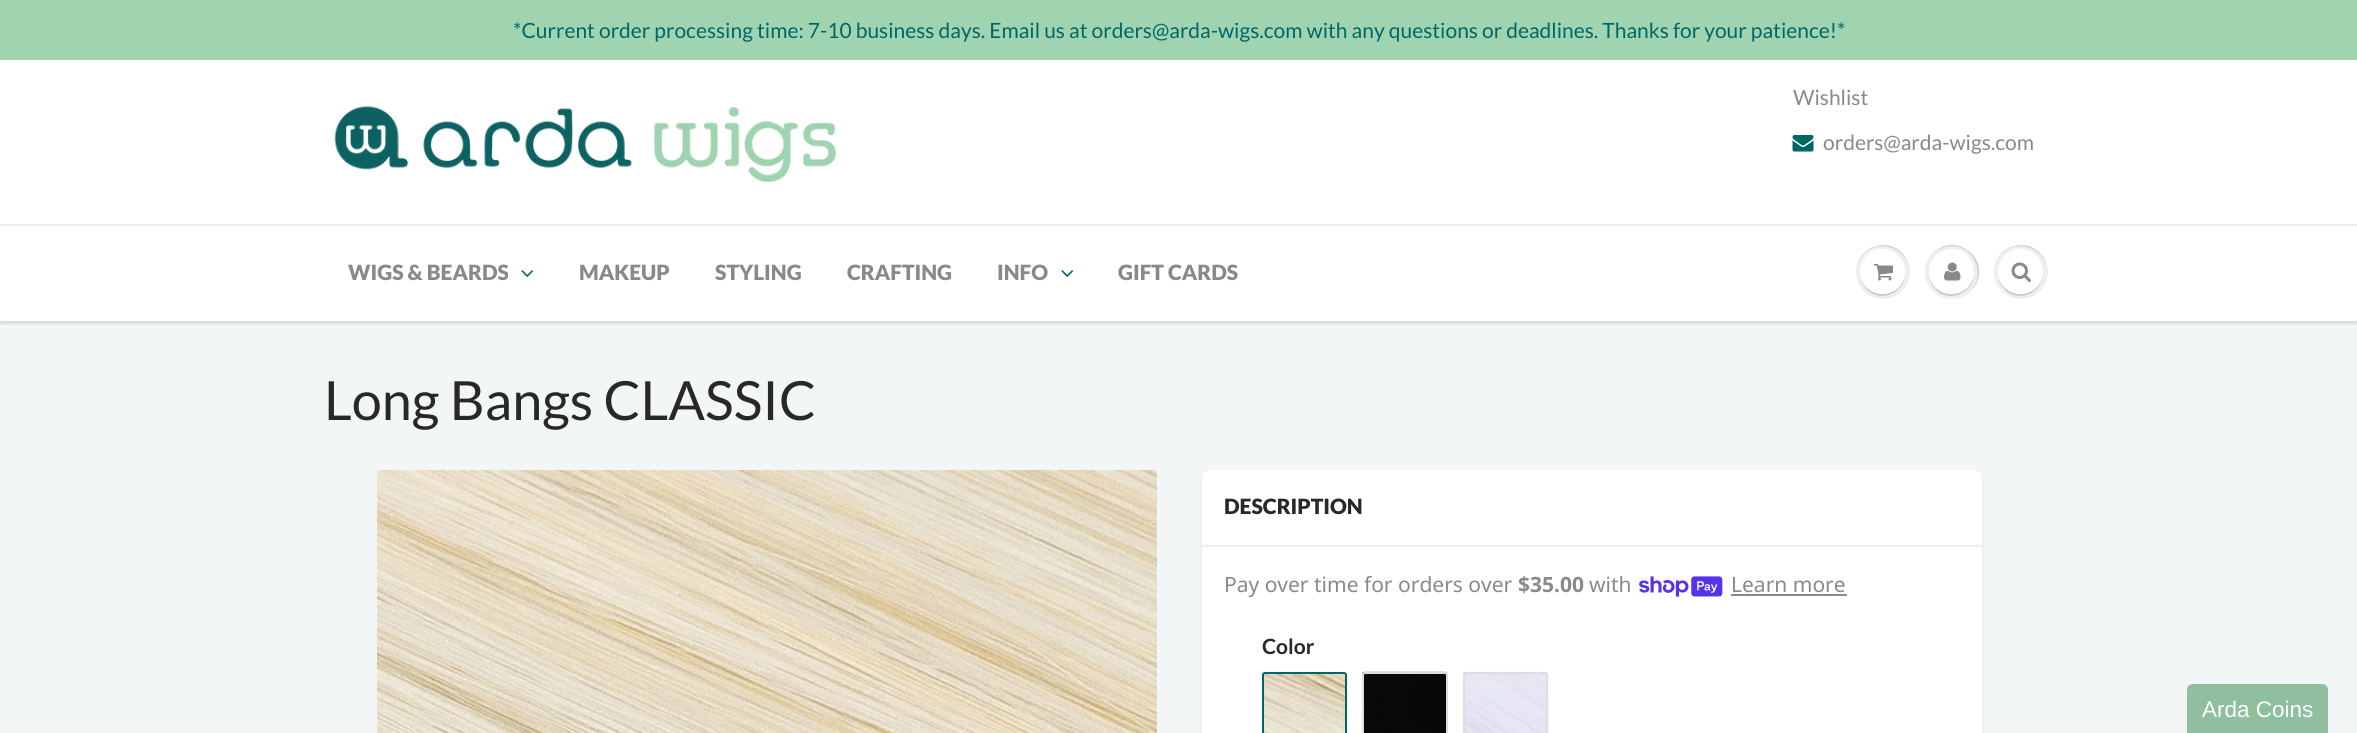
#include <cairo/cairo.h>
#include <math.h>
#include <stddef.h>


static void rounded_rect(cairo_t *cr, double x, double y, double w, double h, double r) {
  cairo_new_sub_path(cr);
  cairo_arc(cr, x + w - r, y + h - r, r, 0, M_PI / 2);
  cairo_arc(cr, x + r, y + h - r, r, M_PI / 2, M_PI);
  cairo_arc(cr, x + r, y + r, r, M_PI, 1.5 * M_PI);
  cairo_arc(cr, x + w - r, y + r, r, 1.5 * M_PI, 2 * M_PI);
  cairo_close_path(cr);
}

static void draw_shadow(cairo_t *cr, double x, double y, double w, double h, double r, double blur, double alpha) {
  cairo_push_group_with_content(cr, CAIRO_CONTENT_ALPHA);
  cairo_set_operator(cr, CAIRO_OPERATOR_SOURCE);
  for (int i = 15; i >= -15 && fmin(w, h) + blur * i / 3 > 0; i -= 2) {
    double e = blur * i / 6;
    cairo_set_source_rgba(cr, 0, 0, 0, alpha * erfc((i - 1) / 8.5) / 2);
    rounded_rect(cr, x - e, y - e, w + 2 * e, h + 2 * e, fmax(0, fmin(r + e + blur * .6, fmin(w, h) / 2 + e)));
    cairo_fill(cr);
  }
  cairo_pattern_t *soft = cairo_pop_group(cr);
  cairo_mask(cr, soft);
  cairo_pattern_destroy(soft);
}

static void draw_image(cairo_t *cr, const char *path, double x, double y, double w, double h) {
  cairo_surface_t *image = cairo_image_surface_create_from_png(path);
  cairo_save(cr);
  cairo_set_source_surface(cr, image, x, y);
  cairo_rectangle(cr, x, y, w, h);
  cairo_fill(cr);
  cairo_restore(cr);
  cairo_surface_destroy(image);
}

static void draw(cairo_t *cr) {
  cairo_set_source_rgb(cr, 1, 1, 1);
  cairo_paint(cr);
  cairo_set_source_rgb(cr, 160 / 255.0, 212 / 255.0, 177 / 255.0);
  cairo_rectangle(cr, 0, 0, 2357, 60);
  cairo_fill(cr);
  draw_image(cr, "images/1.png", 334, 106, 503, 76);
  draw_image(cr, "images/2.png", 1792, 135, 22, 17);
  cairo_set_source_rgb(cr, 243 / 255.0, 246 / 255.0, 246 / 255.0);
  cairo_rectangle(cr, 0, 321, 2357, 412);
  cairo_fill(cr);
  cairo_save(cr);
  cairo_rectangle(cr, 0, 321, 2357, 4);
  cairo_clip(cr);
  cairo_set_source_rgb(cr, 11 / 255.0, 25 / 255.0, 28 / 255.0);
  draw_shadow(cr, 0, 227, 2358, 97, 0, 1.5, 0.12);
  cairo_restore(cr);
  cairo_set_source_rgb(cr, 236 / 255.0, 239 / 255.0, 239 / 255.0);
  cairo_rectangle(cr, 0, 224, 2357, 2);
  cairo_fill(cr);
  draw_image(cr, "images/3.png", 521, 270, 12, 7);
  draw_image(cr, "images/3.png", 1061, 270, 12, 7);
  cairo_set_source_rgb(cr, 237 / 255.0, 239 / 255.0, 239 / 255.0);
  cairo_arc(cr, 1883, 272, 27, 0, 2 * M_PI);
  cairo_fill(cr);
  cairo_set_source_rgb(cr, 201 / 255.0, 203 / 255.0, 203 / 255.0);
  cairo_new_path(cr);
  cairo_move_to(cr, 1882, 246);
  cairo_curve_to(cr, 1897, 246, 1910, 258, 1910, 273);
  cairo_curve_to(cr, 1910, 267, 1908, 261, 1905, 257);
  cairo_curve_to(cr, 1890, 235, 1856, 246, 1856, 272);
  cairo_curve_to(cr, 1856, 258, 1868, 246, 1882, 246);
  cairo_close_path(cr);
  cairo_fill(cr);
  cairo_new_path(cr);
  cairo_move_to(cr, 1860, 272);
  cairo_curve_to(cr, 1860, 277, 1861, 282, 1864, 286);
  cairo_curve_to(cr, 1876, 305, 1906, 295, 1905, 272);
  cairo_curve_to(cr, 1904, 301, 1861, 301, 1860, 272);
  cairo_close_path(cr);
  cairo_fill(cr);
  cairo_set_source_rgb(cr, 1, 1, 1);
  cairo_arc(cr, 1882.5, 271.5, 22.5, 0, 2 * M_PI);
  cairo_fill(cr);
  cairo_new_path(cr);
  cairo_move_to(cr, 1882, 250);
  cairo_curve_to(cr, 1899, 250, 1907, 265, 1904, 278);
  cairo_curve_to(cr, 1911, 254, 1878, 237, 1864, 259);
  cairo_curve_to(cr, 1861, 264, 1859, 270, 1860, 276);
  cairo_curve_to(cr, 1859, 263, 1866, 250, 1882, 250);
  cairo_close_path(cr);
  cairo_fill(cr);
  draw_image(cr, "images/4.png", 1873, 264, 20, 17);
  cairo_set_source_rgb(cr, 237 / 255.0, 239 / 255.0, 239 / 255.0);
  cairo_arc(cr, 1952, 272, 27, 0, 2 * M_PI);
  cairo_fill(cr);
  cairo_set_source_rgb(cr, 201 / 255.0, 203 / 255.0, 203 / 255.0);
  cairo_new_path(cr);
  cairo_move_to(cr, 1952, 246);
  cairo_curve_to(cr, 1975, 246, 1985, 273, 1972, 290);
  cairo_curve_to(cr, 1983, 278, 1981, 259, 1967, 250);
  cairo_curve_to(cr, 1955, 241, 1938, 245, 1930, 257);
  cairo_curve_to(cr, 1935, 250, 1943, 246, 1952, 246);
  cairo_close_path(cr);
  cairo_fill(cr);
  cairo_new_path(cr);
  cairo_move_to(cr, 1929, 272);
  cairo_curve_to(cr, 1929, 277, 1930, 282, 1933, 286);
  cairo_curve_to(cr, 1945, 305, 1975, 295, 1974, 272);
  cairo_curve_to(cr, 1973, 301, 1930, 301, 1929, 272);
  cairo_close_path(cr);
  cairo_fill(cr);
  cairo_set_source_rgb(cr, 1, 1, 1);
  cairo_arc(cr, 1951.5, 271.5, 22.5, 0, 2 * M_PI);
  cairo_fill(cr);
  cairo_new_path(cr);
  cairo_move_to(cr, 1952, 250);
  cairo_curve_to(cr, 1968, 250, 1975, 263, 1974, 276);
  cairo_curve_to(cr, 1975, 270, 1973, 264, 1970, 259);
  cairo_curve_to(cr, 1956, 237, 1923, 254, 1930, 278);
  cairo_curve_to(cr, 1927, 265, 1935, 250, 1952, 250);
  cairo_close_path(cr);
  cairo_fill(cr);
  draw_image(cr, "images/5.png", 1944, 262, 17, 19);
  cairo_set_source_rgb(cr, 237 / 255.0, 239 / 255.0, 239 / 255.0);
  cairo_arc(cr, 2021, 272, 27, 0, 2 * M_PI);
  cairo_fill(cr);
  cairo_set_source_rgb(cr, 201 / 255.0, 203 / 255.0, 203 / 255.0);
  cairo_new_path(cr);
  cairo_move_to(cr, 2020, 246);
  cairo_curve_to(cr, 2035, 246, 2048, 258, 2048, 273);
  cairo_curve_to(cr, 2048, 267, 2046, 261, 2043, 257);
  cairo_curve_to(cr, 2028, 235, 1994, 246, 1994, 272);
  cairo_curve_to(cr, 1994, 258, 2006, 246, 2020, 246);
  cairo_close_path(cr);
  cairo_fill(cr);
  cairo_new_path(cr);
  cairo_move_to(cr, 1998, 272);
  cairo_curve_to(cr, 1998, 277, 1999, 282, 2002, 286);
  cairo_curve_to(cr, 2014, 305, 2044, 295, 2043, 272);
  cairo_curve_to(cr, 2042, 301, 1999, 301, 1998, 272);
  cairo_close_path(cr);
  cairo_fill(cr);
  cairo_set_source_rgb(cr, 1, 1, 1);
  cairo_arc(cr, 2020.5, 271.5, 22.5, 0, 2 * M_PI);
  cairo_fill(cr);
  cairo_new_path(cr);
  cairo_move_to(cr, 2020, 250);
  cairo_curve_to(cr, 2037, 250, 2045, 265, 2042, 278);
  cairo_curve_to(cr, 2049, 254, 2016, 237, 2002, 259);
  cairo_curve_to(cr, 1999, 264, 1997, 270, 1998, 276);
  cairo_curve_to(cr, 1997, 263, 2004, 250, 2020, 250);
  cairo_close_path(cr);
  cairo_fill(cr);
  draw_image(cr, "images/6.png", 2011, 262, 20, 20);
  draw_image(cr, "images/7.png", 377, 470, 780, 263);
  cairo_set_source_rgb(cr, 11 / 255.0, 25 / 255.0, 28 / 255.0);
  draw_shadow(cr, 1202, 473, 780, 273, 8, 1.5, 0.1);
  cairo_set_source_rgb(cr, 1, 1, 1);
  rounded_rect(cr, 1202, 470, 780, 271, 8);
  cairo_fill(cr);
  cairo_set_source_rgb(cr, 239 / 255.0, 239 / 255.0, 239 / 255.0);
  cairo_rectangle(cr, 1202, 545, 780, 2);
  cairo_fill(cr);
  draw_image(cr, "images/8.png", 1639, 576, 84, 21);
  cairo_set_source_rgb(cr, 137 / 255.0, 137 / 255.0, 137 / 255.0);
  cairo_rectangle(cr, 1731, 594, 116, 2);
  cairo_fill(cr);
  draw_image(cr, "images/9.png", 1262, 671, 86, 62);
  rounded_rect(cr, 1263, 673, 83, 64, 2);
  cairo_set_source_rgb(cr, 0, 102 / 255.0, 102 / 255.0);
  cairo_stroke(cr);
  draw_image(cr, "images/10.png", 1362, 671, 86, 62);
  rounded_rect(cr, 1363, 673, 84, 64, 2);
  cairo_set_source_rgb(cr, 221 / 255.0, 221 / 255.0, 221 / 255.0);
  cairo_stroke(cr);
  draw_image(cr, "images/11.png", 1463, 671, 86, 62);
  rounded_rect(cr, 1464, 673, 83, 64, 2);
  cairo_stroke(cr);
  cairo_set_source_rgb(cr, 143 / 255.0, 191 / 255.0, 159 / 255.0);
  cairo_new_path(cr);
  cairo_move_to(cr, 2193, 684);
  cairo_line_to(cr, 2322, 684);
  cairo_curve_to(cr, 2325.5, 684, 2328, 686.5, 2328, 690);
  cairo_line_to(cr, 2328, 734);
  cairo_line_to(cr, 2187, 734);
  cairo_line_to(cr, 2187, 690);
  cairo_curve_to(cr, 2187, 686.5, 2189.5, 684, 2193, 684);
  cairo_close_path(cr);
  cairo_fill(cr);
  cairo_select_font_face(cr, "Lato", CAIRO_FONT_SLANT_NORMAL, CAIRO_FONT_WEIGHT_NORMAL);
  cairo_set_font_size(cr, 21);
  cairo_set_source_rgb(cr, 0, 102 / 255.0, 102 / 255.0);
  cairo_move_to(cr, 513, 38);
  cairo_show_text(cr, "*Current order processing time: 7-10 business days. Email us at orders@arda-wigs.com with any questions or deadlines. Thanks for your patience!*");
  cairo_set_source_rgb(cr, 137 / 255.0, 137 / 255.0, 137 / 255.0);
  cairo_move_to(cr, 1793, 105);
  cairo_show_text(cr, "Wishlist");
  cairo_move_to(cr, 1823, 150);
  cairo_show_text(cr, "orders@arda-wigs.com");
  cairo_select_font_face(cr, "Lato Black", CAIRO_FONT_SLANT_NORMAL, CAIRO_FONT_WEIGHT_NORMAL);
  cairo_move_to(cr, 348, 280);
  cairo_show_text(cr, "WIGS & BEARDS");
  cairo_move_to(cr, 579, 280);
  cairo_show_text(cr, "MAKEUP");
  cairo_move_to(cr, 715, 280);
  cairo_show_text(cr, "STYLING");
  cairo_move_to(cr, 847, 280);
  cairo_show_text(cr, "CRAFTING");
  cairo_move_to(cr, 997, 280);
  cairo_show_text(cr, "INFO");
  cairo_move_to(cr, 1118, 280);
  cairo_show_text(cr, "GIFT CARDS");
  cairo_select_font_face(cr, "Lato", CAIRO_FONT_SLANT_NORMAL, CAIRO_FONT_WEIGHT_NORMAL);
  cairo_set_font_size(cr, 54);
  cairo_set_source_rgb(cr, 40 / 255.0, 40 / 255.0, 39 / 255.0);
  cairo_move_to(cr, 324, 420);
  cairo_show_text(cr, "Long Bangs CLASSIC");
  cairo_select_font_face(cr, "Lato Black", CAIRO_FONT_SLANT_NORMAL, CAIRO_FONT_WEIGHT_NORMAL);
  cairo_set_font_size(cr, 21);
  cairo_move_to(cr, 1224, 514);
  cairo_show_text(cr, "DESCRIPTION");
  cairo_select_font_face(cr, "Noto Sans", CAIRO_FONT_SLANT_NORMAL, CAIRO_FONT_WEIGHT_NORMAL);
  cairo_set_source_rgb(cr, 137 / 255.0, 137 / 255.0, 137 / 255.0);
  cairo_move_to(cr, 1224, 592);
  cairo_show_text(cr, "Pay over time for orders over");
  cairo_select_font_face(cr, "Noto Sans", CAIRO_FONT_SLANT_NORMAL, CAIRO_FONT_WEIGHT_BOLD);
  cairo_move_to(cr, 1518, 592);
  cairo_show_text(cr, "$35.00");
  cairo_select_font_face(cr, "Noto Sans", CAIRO_FONT_SLANT_NORMAL, CAIRO_FONT_WEIGHT_NORMAL);
  cairo_move_to(cr, 1589, 592);
  cairo_show_text(cr, "with");
  cairo_move_to(cr, 1731, 592);
  cairo_show_text(cr, "Learn more");
  cairo_select_font_face(cr, "Lato", CAIRO_FONT_SLANT_NORMAL, CAIRO_FONT_WEIGHT_BOLD);
  cairo_set_source_rgb(cr, 40 / 255.0, 40 / 255.0, 39 / 255.0);
  cairo_move_to(cr, 1262, 654);
  cairo_show_text(cr, "Color");
  cairo_select_font_face(cr, "Liberation Sans", CAIRO_FONT_SLANT_NORMAL, CAIRO_FONT_WEIGHT_NORMAL);
  cairo_set_font_size(cr, 22.5);
  cairo_set_source_rgb(cr, 1, 1, 1);
  cairo_move_to(cr, 2202, 717);
  cairo_show_text(cr, "Arda Coins");
}

int main(void) {
  cairo_surface_t *surface = cairo_image_surface_create(CAIRO_FORMAT_RGB24, 2357, 733);
  cairo_t *cr = cairo_create(surface);
  cairo_font_options_t *options = cairo_font_options_create();
  cairo_font_options_set_hint_metrics(options, CAIRO_HINT_METRICS_OFF);
  cairo_font_options_set_hint_style(options, CAIRO_HINT_STYLE_NONE);
  cairo_set_font_options(cr, options);
  cairo_set_miter_limit(cr, 4);
  draw(cr);
  cairo_surface_write_to_png(surface, "out.png");
  cairo_font_options_destroy(options);
  cairo_destroy(cr);
  cairo_surface_destroy(surface);
  return 0;
}
